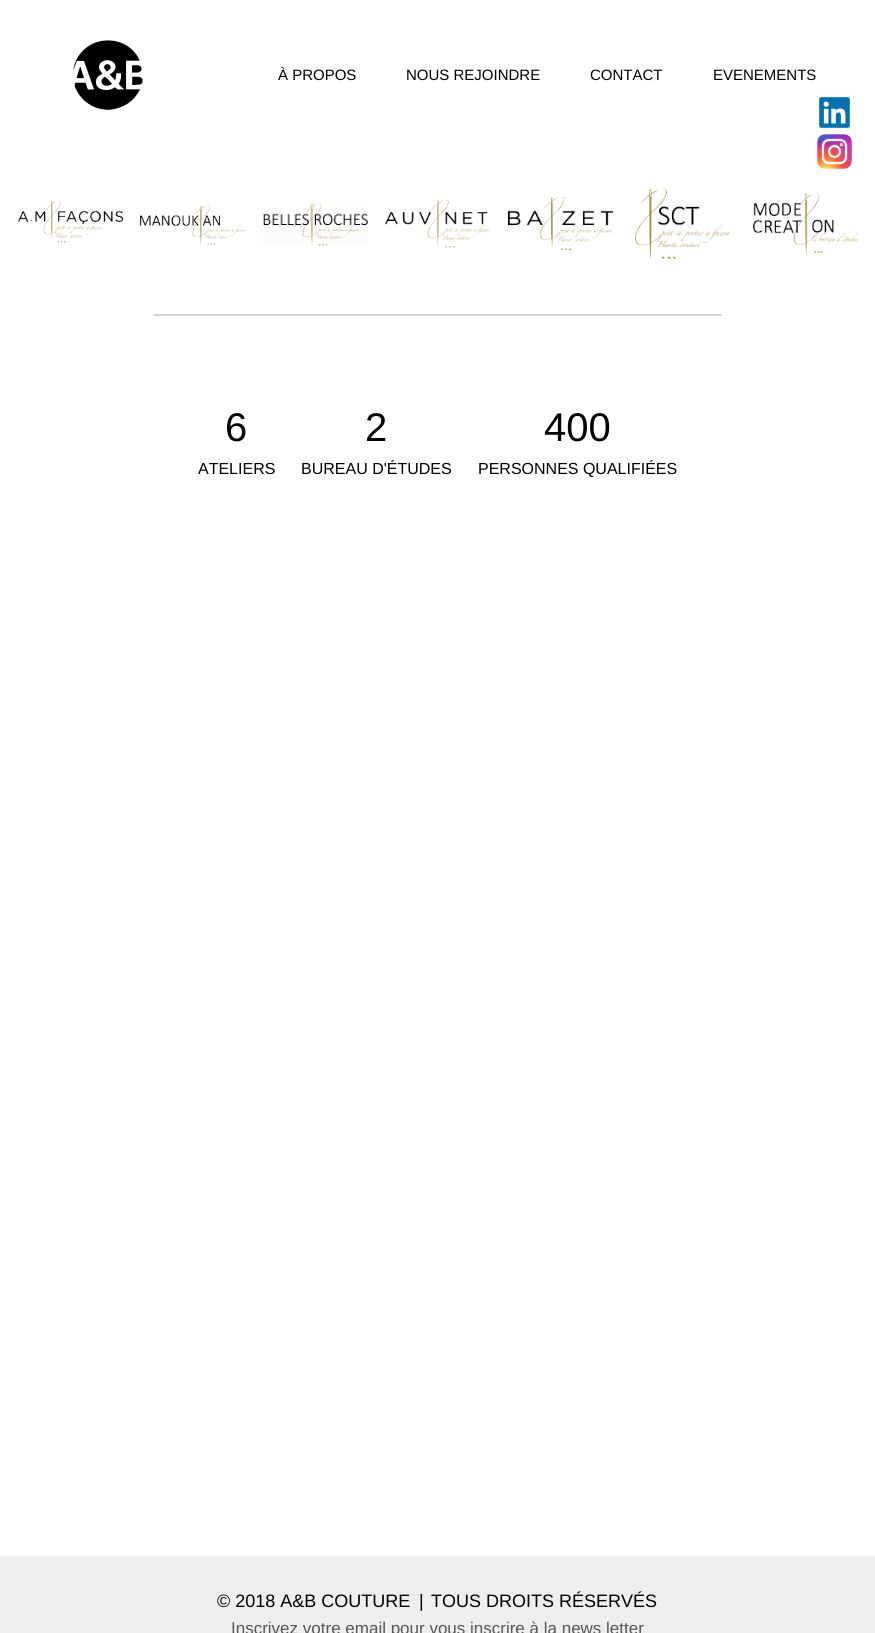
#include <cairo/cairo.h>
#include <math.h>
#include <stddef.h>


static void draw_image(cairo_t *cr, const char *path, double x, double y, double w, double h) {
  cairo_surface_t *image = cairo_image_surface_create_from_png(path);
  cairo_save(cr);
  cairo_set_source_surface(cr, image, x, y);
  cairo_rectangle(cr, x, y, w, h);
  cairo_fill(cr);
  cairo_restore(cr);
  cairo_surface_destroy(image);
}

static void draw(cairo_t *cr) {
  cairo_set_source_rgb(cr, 1, 1, 1);
  cairo_paint(cr);
  draw_image(cr, "images/1.png", 73, 40, 70, 70);
  draw_image(cr, "images/2.png", 819, 97, 31, 31);
  draw_image(cr, "images/3.png", 817, 134, 35, 35);
  draw_image(cr, "images/4.png", 18, 201, 105, 42);
  draw_image(cr, "images/5.png", 140, 205, 105, 40);
  draw_image(cr, "images/6.png", 263, 203, 105, 43);
  draw_image(cr, "images/7.png", 385, 200, 105, 48);
  draw_image(cr, "images/8.png", 508, 197, 105, 54);
  draw_image(cr, "images/9.png", 635, 188, 96, 71);
  draw_image(cr, "images/10.png", 753, 193, 105, 64);
  cairo_set_source_rgb(cr, 211 / 255.0, 211 / 255.0, 211 / 255.0);
  cairo_rectangle(cr, 154, 314, 568, 2);
  cairo_fill(cr);
  cairo_set_source_rgb(cr, 238 / 255.0, 238 / 255.0, 238 / 255.0);
  cairo_rectangle(cr, 0, 1556, 875, 77);
  cairo_fill(cr);
  cairo_select_font_face(cr, "Liberation Sans", CAIRO_FONT_SLANT_NORMAL, CAIRO_FONT_WEIGHT_NORMAL);
  cairo_set_font_size(cr, 15);
  cairo_set_source_rgb(cr, 0, 0, 0);
  cairo_move_to(cr, 278, 80);
  cairo_show_text(cr, "À PROPOS");
  cairo_move_to(cr, 406, 80);
  cairo_show_text(cr, "NOUS REJOINDRE");
  cairo_move_to(cr, 590, 80);
  cairo_show_text(cr, "CONTACT");
  cairo_move_to(cr, 713, 80);
  cairo_show_text(cr, "EVENEMENTS");
  cairo_set_font_size(cr, 40);
  cairo_move_to(cr, 225, 441);
  cairo_show_text(cr, "6");
  cairo_set_font_size(cr, 16);
  cairo_move_to(cr, 198, 474);
  cairo_show_text(cr, "ATELIERS");
  cairo_set_font_size(cr, 40);
  cairo_move_to(cr, 365, 441);
  cairo_show_text(cr, "2");
  cairo_set_font_size(cr, 16);
  cairo_move_to(cr, 301, 474);
  cairo_show_text(cr, "BUREAU D'ÉTUDES");
  cairo_set_font_size(cr, 40);
  cairo_move_to(cr, 544, 441);
  cairo_show_text(cr, "400");
  cairo_set_font_size(cr, 16);
  cairo_move_to(cr, 478, 474);
  cairo_show_text(cr, "PERSONNES QUALIFIÉES");
  cairo_set_font_size(cr, 18);
  cairo_move_to(cr, 217, 1607);
  cairo_show_text(cr, "© 2018 A&B COUTURE");
  cairo_move_to(cr, 419, 1607);
  cairo_show_text(cr, "|");
  cairo_move_to(cr, 431, 1607);
  cairo_show_text(cr, "TOUS DROITS RÉSERVÉS");
  cairo_set_font_size(cr, 17);
  cairo_set_source_rgb(cr, 87 / 255.0, 87 / 255.0, 87 / 255.0);
  cairo_move_to(cr, 231, 1634);
  cairo_show_text(cr, "Inscrivez votre email pour vous inscrire à la news letter");
}

int main(void) {
  cairo_surface_t *surface = cairo_image_surface_create(CAIRO_FORMAT_RGB24, 875, 1633);
  cairo_t *cr = cairo_create(surface);
  cairo_font_options_t *options = cairo_font_options_create();
  cairo_font_options_set_hint_metrics(options, CAIRO_HINT_METRICS_OFF);
  cairo_font_options_set_hint_style(options, CAIRO_HINT_STYLE_NONE);
  cairo_set_font_options(cr, options);
  cairo_set_miter_limit(cr, 4);
  draw(cr);
  cairo_surface_write_to_png(surface, "out.png");
  cairo_font_options_destroy(options);
  cairo_destroy(cr);
  cairo_surface_destroy(surface);
  return 0;
}
